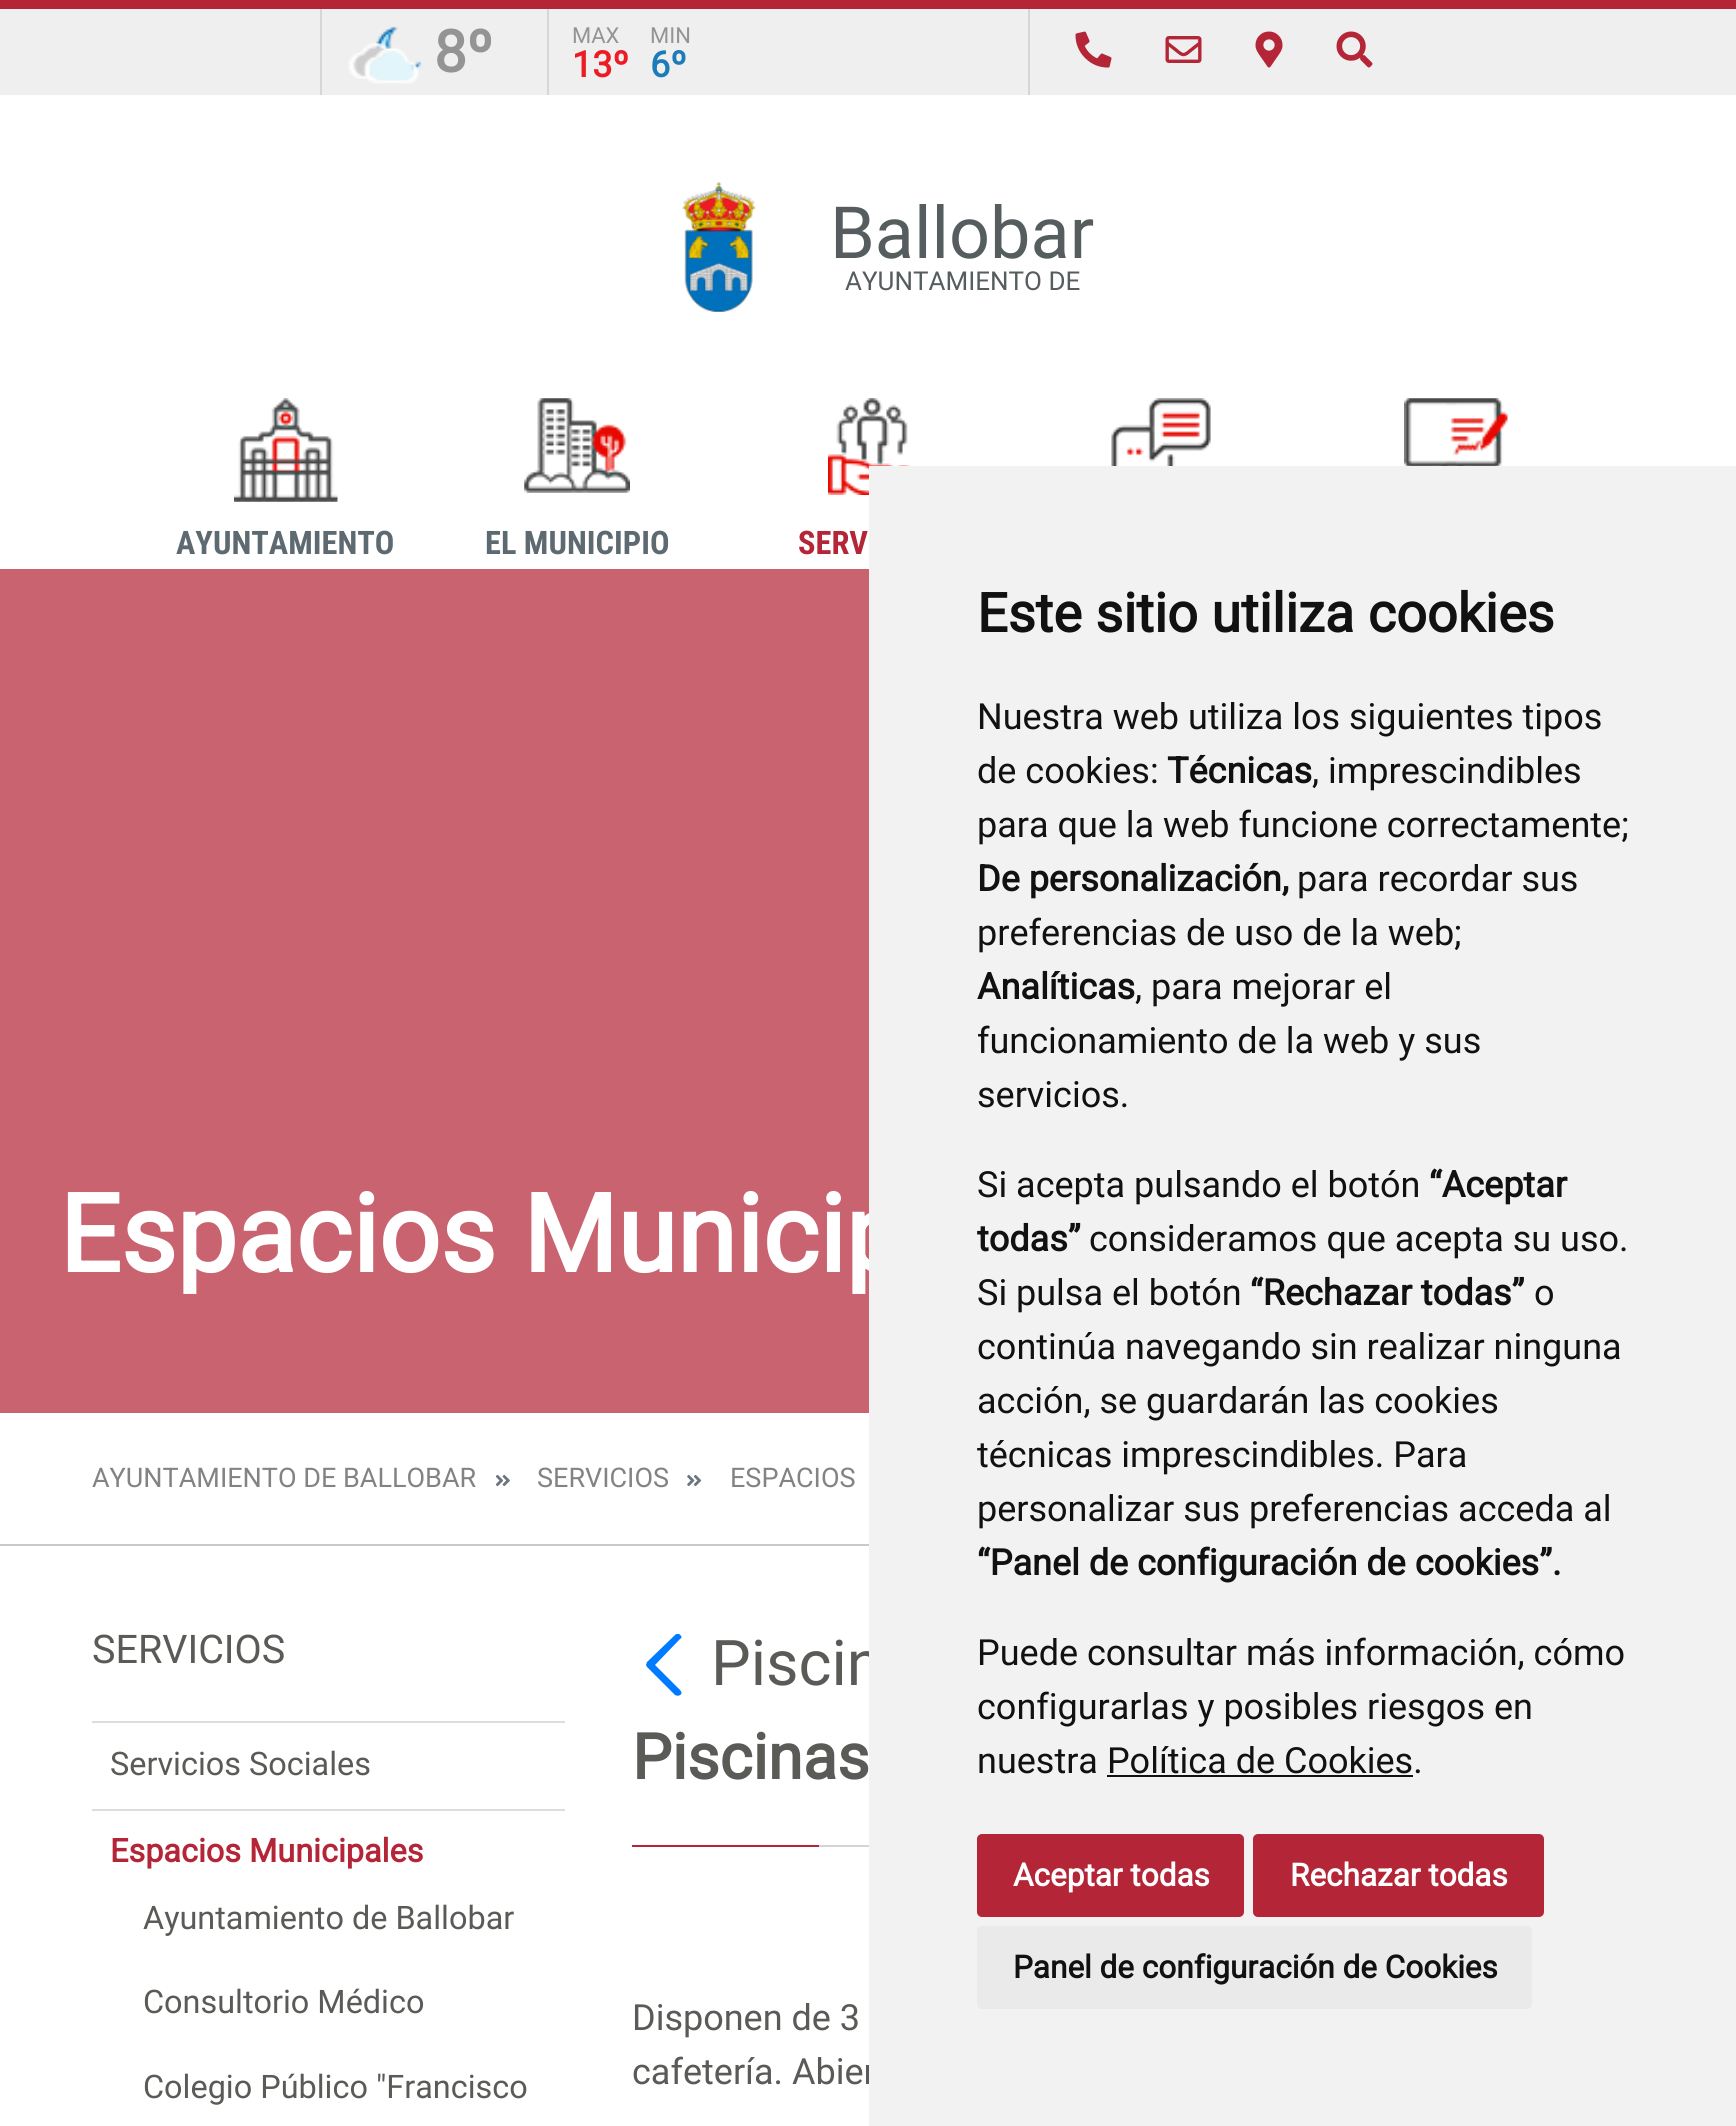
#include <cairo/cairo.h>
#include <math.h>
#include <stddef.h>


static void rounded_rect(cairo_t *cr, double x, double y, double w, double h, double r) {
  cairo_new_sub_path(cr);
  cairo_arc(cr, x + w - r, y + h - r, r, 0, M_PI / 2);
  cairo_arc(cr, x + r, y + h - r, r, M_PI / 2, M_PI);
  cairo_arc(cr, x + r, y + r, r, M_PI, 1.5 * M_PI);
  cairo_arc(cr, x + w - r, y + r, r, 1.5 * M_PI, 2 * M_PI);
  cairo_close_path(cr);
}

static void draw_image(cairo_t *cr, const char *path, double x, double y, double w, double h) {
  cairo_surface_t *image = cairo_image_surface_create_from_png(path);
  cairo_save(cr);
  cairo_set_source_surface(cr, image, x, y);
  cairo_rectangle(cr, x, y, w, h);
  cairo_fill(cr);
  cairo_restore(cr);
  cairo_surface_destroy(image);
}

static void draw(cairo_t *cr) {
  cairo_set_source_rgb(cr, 1, 1, 1);
  cairo_paint(cr);
  cairo_set_source_rgb(cr, 239 / 255.0, 239 / 255.0, 239 / 255.0);
  cairo_rectangle(cr, 0, 9, 1736, 86);
  cairo_fill(cr);
  cairo_set_source_rgb(cr, 180 / 255.0, 38 / 255.0, 55 / 255.0);
  cairo_rectangle(cr, 0, 0, 1736, 9);
  cairo_fill(cr);
  cairo_set_source_rgb(cr, 214 / 255.0, 214 / 255.0, 214 / 255.0);
  cairo_rectangle(cr, 320, 9, 2, 86);
  cairo_fill(cr);
  draw_image(cr, "images/1.png", 348, 26, 74, 58);
  cairo_rectangle(cr, 547, 9, 2, 86);
  cairo_fill(cr);
  cairo_rectangle(cr, 1028, 9, 2, 86);
  cairo_fill(cr);
  draw_image(cr, "images/2.png", 1075, 31, 37, 37);
  draw_image(cr, "images/3.png", 1165, 36, 37, 27);
  draw_image(cr, "images/4.png", 1255, 31, 28, 37);
  draw_image(cr, "images/5.png", 1336, 31, 37, 37);
  draw_image(cr, "images/6.png", 682, 182, 74, 130);
  draw_image(cr, "images/7.png", 1111, 398, 100, 68);
  draw_image(cr, "images/8.png", 1404, 398, 104, 68);
  draw_image(cr, "images/9.png", 234, 398, 104, 104);
  draw_image(cr, "images/10.png", 524, 398, 106, 95);
  draw_image(cr, "images/11.png", 828, 398, 82, 97);
  cairo_set_source_rgb(cr, 201 / 255.0, 99 / 255.0, 111 / 255.0);
  cairo_rectangle(cr, 0, 569, 869, 844);
  cairo_fill(cr);
  cairo_set_source_rgb(cr, 202 / 255.0, 201 / 255.0, 201 / 255.0);
  cairo_rectangle(cr, 0, 1544, 869, 2);
  cairo_fill(cr);
  draw_image(cr, "images/12.png", 495, 1474, 15, 13);
  draw_image(cr, "images/13.png", 687, 1474, 15, 13);
  cairo_set_source_rgb(cr, 217 / 255.0, 222 / 255.0, 225 / 255.0);
  cairo_rectangle(cr, 92, 1721, 473, 2);
  cairo_fill(cr);
  cairo_rectangle(cr, 92, 1809, 473, 2);
  cairo_fill(cr);
  cairo_save(cr);
  cairo_rectangle(cr, 632, 1634, 63, 63);
  cairo_clip(cr);
  cairo_set_source_rgb(cr, 0, 123 / 255.0, 1);
  cairo_new_path(cr);
  cairo_move_to(cr, 646, 1665);
  cairo_line_to(cr, 647, 1667);
  cairo_line_to(cr, 675, 1695);
  cairo_curve_to(cr, 677, 1696, 679, 1696, 680, 1695);
  cairo_curve_to(cr, 682, 1694, 682, 1692, 680, 1690);
  cairo_line_to(cr, 655, 1665);
  cairo_line_to(cr, 680, 1639);
  cairo_curve_to(cr, 682, 1638, 682, 1636, 680, 1635);
  cairo_curve_to(cr, 679, 1633, 677, 1633, 675, 1635);
  cairo_line_to(cr, 647, 1662);
  cairo_close_path(cr);
  cairo_fill(cr);
  cairo_restore(cr);
  cairo_set_source_rgb(cr, 180 / 255.0, 38 / 255.0, 55 / 255.0);
  cairo_rectangle(cr, 632, 1845, 187, 2);
  cairo_fill(cr);
  cairo_set_source_rgb(cr, 212 / 255.0, 212 / 255.0, 212 / 255.0);
  cairo_rectangle(cr, 819, 1845, 50, 2);
  cairo_fill(cr);
  cairo_select_font_face(cr, "Roboto", CAIRO_FONT_SLANT_NORMAL, CAIRO_FONT_WEIGHT_BOLD);
  cairo_set_font_size(cr, 58);
  cairo_set_source_rgb(cr, 148 / 255.0, 148 / 255.0, 148 / 255.0);
  cairo_move_to(cr, 434, 72);
  cairo_show_text(cr, "8º");
  cairo_select_font_face(cr, "Roboto", CAIRO_FONT_SLANT_NORMAL, CAIRO_FONT_WEIGHT_NORMAL);
  cairo_set_font_size(cr, 22);
  cairo_move_to(cr, 572, 43);
  cairo_show_text(cr, "MAX");
  cairo_select_font_face(cr, "Roboto", CAIRO_FONT_SLANT_NORMAL, CAIRO_FONT_WEIGHT_BOLD);
  cairo_set_font_size(cr, 36);
  cairo_set_source_rgb(cr, 237 / 255.0, 28 / 255.0, 36 / 255.0);
  cairo_move_to(cr, 572, 77);
  cairo_show_text(cr, "13º");
  cairo_select_font_face(cr, "Roboto", CAIRO_FONT_SLANT_NORMAL, CAIRO_FONT_WEIGHT_NORMAL);
  cairo_set_font_size(cr, 22);
  cairo_set_source_rgb(cr, 148 / 255.0, 148 / 255.0, 148 / 255.0);
  cairo_move_to(cr, 650, 43);
  cairo_show_text(cr, "MIN");
  cairo_select_font_face(cr, "Roboto", CAIRO_FONT_SLANT_NORMAL, CAIRO_FONT_WEIGHT_BOLD);
  cairo_set_font_size(cr, 36);
  cairo_set_source_rgb(cr, 29 / 255.0, 123 / 255.0, 185 / 255.0);
  cairo_move_to(cr, 650, 77);
  cairo_show_text(cr, "6º");
  cairo_select_font_face(cr, "Roboto", CAIRO_FONT_SLANT_NORMAL, CAIRO_FONT_WEIGHT_NORMAL);
  cairo_set_font_size(cr, 72);
  cairo_set_source_rgb(cr, 86 / 255.0, 93 / 255.0, 94 / 255.0);
  cairo_move_to(cr, 830, 258);
  cairo_show_text(cr, "Ballobar");
  cairo_set_font_size(cr, 26);
  cairo_move_to(cr, 845, 290);
  cairo_show_text(cr, "AYUNTAMIENTO DE");
  cairo_select_font_face(cr, "Roboto Condensed", CAIRO_FONT_SLANT_NORMAL, CAIRO_FONT_WEIGHT_BOLD);
  cairo_set_font_size(cr, 32.4);
  cairo_set_source_rgb(cr, 94 / 255.0, 106 / 255.0, 113 / 255.0);
  cairo_move_to(cr, 176, 554);
  cairo_show_text(cr, "AYUNTAMIENTO");
  cairo_move_to(cr, 485, 554);
  cairo_show_text(cr, "EL MUNICIPIO");
  cairo_set_source_rgb(cr, 180 / 255.0, 38 / 255.0, 55 / 255.0);
  cairo_move_to(cr, 798, 554);
  cairo_show_text(cr, "SERV");
  cairo_select_font_face(cr, "Roboto", CAIRO_FONT_SLANT_NORMAL, CAIRO_FONT_WEIGHT_BOLD);
  cairo_set_font_size(cr, 108);
  cairo_set_source_rgb(cr, 1, 1, 1);
  cairo_move_to(cr, 59, 1272);
  cairo_show_text(cr, "Espacios Municip");
  cairo_select_font_face(cr, "Roboto", CAIRO_FONT_SLANT_NORMAL, CAIRO_FONT_WEIGHT_NORMAL);
  cairo_set_font_size(cr, 27);
  cairo_set_source_rgb(cr, 131 / 255.0, 131 / 255.0, 131 / 255.0);
  cairo_move_to(cr, 92, 1487);
  cairo_show_text(cr, "AYUNTAMIENTO DE BALLOBAR");
  cairo_move_to(cr, 537, 1487);
  cairo_show_text(cr, "SERVICIOS");
  cairo_move_to(cr, 730, 1487);
  cairo_show_text(cr, "ESPACIOS");
  cairo_set_font_size(cr, 39.5);
  cairo_set_source_rgb(cr, 90 / 255.0, 90 / 255.0, 87 / 255.0);
  cairo_move_to(cr, 92, 1663);
  cairo_show_text(cr, "SERVICIOS");
  cairo_set_font_size(cr, 32.4);
  cairo_move_to(cr, 110, 1775);
  cairo_show_text(cr, "Servicios Sociales");
  cairo_select_font_face(cr, "Roboto", CAIRO_FONT_SLANT_NORMAL, CAIRO_FONT_WEIGHT_BOLD);
  cairo_set_source_rgb(cr, 180 / 255.0, 38 / 255.0, 55 / 255.0);
  cairo_move_to(cr, 110, 1862);
  cairo_show_text(cr, "Espacios Municipales");
  cairo_select_font_face(cr, "Roboto", CAIRO_FONT_SLANT_NORMAL, CAIRO_FONT_WEIGHT_NORMAL);
  cairo_set_source_rgb(cr, 90 / 255.0, 90 / 255.0, 87 / 255.0);
  cairo_move_to(cr, 143, 1929);
  cairo_show_text(cr, "Ayuntamiento de Ballobar");
  cairo_move_to(cr, 143, 2013);
  cairo_show_text(cr, "Consultorio Médico");
  cairo_move_to(cr, 143, 2098);
  cairo_show_text(cr, "Colegio Público \"Francisco");
  cairo_set_font_size(cr, 63);
  cairo_move_to(cr, 711, 1685);
  cairo_show_text(cr, "Piscin");
  cairo_select_font_face(cr, "Roboto", CAIRO_FONT_SLANT_NORMAL, CAIRO_FONT_WEIGHT_BOLD);
  cairo_move_to(cr, 632, 1779);
  cairo_show_text(cr, "Piscinas");
  cairo_select_font_face(cr, "Roboto", CAIRO_FONT_SLANT_NORMAL, CAIRO_FONT_WEIGHT_NORMAL);
  cairo_set_font_size(cr, 36);
  cairo_move_to(cr, 632, 2030);
  cairo_show_text(cr, "Disponen de 3");
  cairo_move_to(cr, 632, 2084);
  cairo_show_text(cr, "cafetería. Abier");
  cairo_set_source_rgb(cr, 242 / 255.0, 242 / 255.0, 242 / 255.0);
  cairo_rectangle(cr, 869, 466, 867, 1660);
  cairo_fill(cr);
  cairo_select_font_face(cr, "Roboto", CAIRO_FONT_SLANT_NORMAL, CAIRO_FONT_WEIGHT_BOLD);
  cairo_set_font_size(cr, 54);
  cairo_set_source_rgb(cr, 17 / 255.0, 17 / 255.0, 17 / 255.0);
  cairo_move_to(cr, 977, 632);
  cairo_show_text(cr, "Este sitio utiliza cookies");
  cairo_select_font_face(cr, "Roboto", CAIRO_FONT_SLANT_NORMAL, CAIRO_FONT_WEIGHT_NORMAL);
  cairo_set_font_size(cr, 36);
  cairo_move_to(cr, 977, 729);
  cairo_show_text(cr, "Nuestra web utiliza los siguientes tipos");
  cairo_move_to(cr, 977, 783);
  cairo_show_text(cr, "de cookies:");
  cairo_select_font_face(cr, "Roboto", CAIRO_FONT_SLANT_NORMAL, CAIRO_FONT_WEIGHT_BOLD);
  cairo_move_to(cr, 1167, 783);
  cairo_show_text(cr, "Técnicas");
  cairo_select_font_face(cr, "Roboto", CAIRO_FONT_SLANT_NORMAL, CAIRO_FONT_WEIGHT_NORMAL);
  cairo_move_to(cr, 1312, 783);
  cairo_show_text(cr, ", imprescindibles");
  cairo_move_to(cr, 977, 837);
  cairo_show_text(cr, "para que la web funcione correctamente;");
  cairo_select_font_face(cr, "Roboto", CAIRO_FONT_SLANT_NORMAL, CAIRO_FONT_WEIGHT_BOLD);
  cairo_move_to(cr, 977, 891);
  cairo_show_text(cr, "De personalización,");
  cairo_select_font_face(cr, "Roboto", CAIRO_FONT_SLANT_NORMAL, CAIRO_FONT_WEIGHT_NORMAL);
  cairo_move_to(cr, 1297, 891);
  cairo_show_text(cr, "para recordar sus");
  cairo_move_to(cr, 977, 945);
  cairo_show_text(cr, "preferencias de uso de la web;");
  cairo_select_font_face(cr, "Roboto", CAIRO_FONT_SLANT_NORMAL, CAIRO_FONT_WEIGHT_BOLD);
  cairo_move_to(cr, 977, 999);
  cairo_show_text(cr, "Analíticas");
  cairo_select_font_face(cr, "Roboto", CAIRO_FONT_SLANT_NORMAL, CAIRO_FONT_WEIGHT_NORMAL);
  cairo_move_to(cr, 1135, 999);
  cairo_show_text(cr, ", para mejorar el");
  cairo_move_to(cr, 977, 1053);
  cairo_show_text(cr, "funcionamiento de la web y sus");
  cairo_move_to(cr, 977, 1107);
  cairo_show_text(cr, "servicios.");
  cairo_move_to(cr, 977, 1197);
  cairo_show_text(cr, "Si acepta pulsando el botón");
  cairo_select_font_face(cr, "Roboto", CAIRO_FONT_SLANT_NORMAL, CAIRO_FONT_WEIGHT_BOLD);
  cairo_move_to(cr, 1429, 1197);
  cairo_show_text(cr, "“Aceptar");
  cairo_move_to(cr, 977, 1251);
  cairo_show_text(cr, "todas”");
  cairo_select_font_face(cr, "Roboto", CAIRO_FONT_SLANT_NORMAL, CAIRO_FONT_WEIGHT_NORMAL);
  cairo_move_to(cr, 1089, 1251);
  cairo_show_text(cr, "consideramos que acepta su uso.");
  cairo_move_to(cr, 977, 1305);
  cairo_show_text(cr, "Si pulsa el botón");
  cairo_select_font_face(cr, "Roboto", CAIRO_FONT_SLANT_NORMAL, CAIRO_FONT_WEIGHT_BOLD);
  cairo_move_to(cr, 1250, 1305);
  cairo_show_text(cr, "“Rechazar todas”");
  cairo_select_font_face(cr, "Roboto", CAIRO_FONT_SLANT_NORMAL, CAIRO_FONT_WEIGHT_NORMAL);
  cairo_move_to(cr, 1534, 1305);
  cairo_show_text(cr, "o");
  cairo_move_to(cr, 977, 1359);
  cairo_show_text(cr, "continúa navegando sin realizar ninguna");
  cairo_move_to(cr, 977, 1413);
  cairo_show_text(cr, "acción, se guardarán las cookies");
  cairo_move_to(cr, 977, 1467);
  cairo_show_text(cr, "técnicas imprescindibles. Para");
  cairo_move_to(cr, 977, 1521);
  cairo_show_text(cr, "personalizar sus preferencias acceda al");
  cairo_select_font_face(cr, "Roboto", CAIRO_FONT_SLANT_NORMAL, CAIRO_FONT_WEIGHT_BOLD);
  cairo_move_to(cr, 977, 1575);
  cairo_show_text(cr, "“Panel de configuración de cookies”.");
  cairo_select_font_face(cr, "Roboto", CAIRO_FONT_SLANT_NORMAL, CAIRO_FONT_WEIGHT_NORMAL);
  cairo_move_to(cr, 977, 1665);
  cairo_show_text(cr, "Puede consultar más información, cómo");
  cairo_move_to(cr, 977, 1719);
  cairo_show_text(cr, "configurarlas y posibles riesgos en");
  cairo_move_to(cr, 977, 1773);
  cairo_show_text(cr, "nuestra Política de Cookies.");
  cairo_rectangle(cr, 1107, 1775, 306, 2);
  cairo_fill(cr);
  cairo_set_source_rgb(cr, 180 / 255.0, 38 / 255.0, 55 / 255.0);
  rounded_rect(cr, 977, 1834, 267, 83, 5);
  cairo_fill(cr);
  cairo_select_font_face(cr, "Roboto", CAIRO_FONT_SLANT_NORMAL, CAIRO_FONT_WEIGHT_BOLD);
  cairo_set_font_size(cr, 31.5);
  cairo_set_source_rgb(cr, 1, 1, 1);
  cairo_move_to(cr, 1013, 1886);
  cairo_show_text(cr, "Aceptar todas");
  cairo_set_source_rgb(cr, 180 / 255.0, 38 / 255.0, 55 / 255.0);
  rounded_rect(cr, 1253, 1834, 291, 83, 5);
  cairo_fill(cr);
  cairo_set_source_rgb(cr, 1, 1, 1);
  cairo_move_to(cr, 1290, 1886);
  cairo_show_text(cr, "Rechazar todas");
  cairo_set_source_rgb(cr, 234 / 255.0, 234 / 255.0, 234 / 255.0);
  rounded_rect(cr, 977, 1926, 555, 83, 5);
  cairo_fill(cr);
  cairo_set_source_rgb(cr, 17 / 255.0, 17 / 255.0, 17 / 255.0);
  cairo_move_to(cr, 1013, 1978);
  cairo_show_text(cr, "Panel de configuración de Cookies");
}

int main(void) {
  cairo_surface_t *surface = cairo_image_surface_create(CAIRO_FORMAT_RGB24, 1736, 2126);
  cairo_t *cr = cairo_create(surface);
  cairo_font_options_t *options = cairo_font_options_create();
  cairo_font_options_set_hint_metrics(options, CAIRO_HINT_METRICS_OFF);
  cairo_font_options_set_hint_style(options, CAIRO_HINT_STYLE_NONE);
  cairo_set_font_options(cr, options);
  cairo_set_miter_limit(cr, 4);
  draw(cr);
  cairo_surface_write_to_png(surface, "out.png");
  cairo_font_options_destroy(options);
  cairo_destroy(cr);
  cairo_surface_destroy(surface);
  return 0;
}
